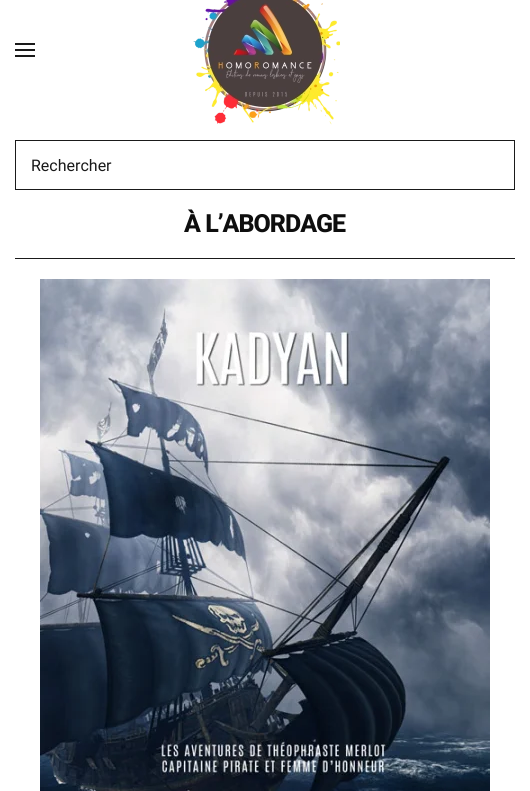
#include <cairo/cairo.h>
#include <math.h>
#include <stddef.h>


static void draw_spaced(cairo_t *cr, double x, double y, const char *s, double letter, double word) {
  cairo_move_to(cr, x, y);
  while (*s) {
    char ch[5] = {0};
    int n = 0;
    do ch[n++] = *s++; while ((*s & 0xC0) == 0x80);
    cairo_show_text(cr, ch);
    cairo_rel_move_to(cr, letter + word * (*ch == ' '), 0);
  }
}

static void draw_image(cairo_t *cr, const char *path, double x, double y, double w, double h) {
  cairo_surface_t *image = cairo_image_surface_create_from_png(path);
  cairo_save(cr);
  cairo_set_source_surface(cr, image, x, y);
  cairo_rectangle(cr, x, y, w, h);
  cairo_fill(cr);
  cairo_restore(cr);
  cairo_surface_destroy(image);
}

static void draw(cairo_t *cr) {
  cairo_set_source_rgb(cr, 1, 1, 1);
  cairo_paint(cr);
  cairo_set_source_rgb(cr, 26 / 255.0, 26 / 255.0, 26 / 255.0);
  cairo_rectangle(cr, 15, 43, 20, 2);
  cairo_fill(cr);
  cairo_rectangle(cr, 15, 49, 20, 2);
  cairo_fill(cr);
  cairo_rectangle(cr, 15, 55, 20, 2);
  cairo_fill(cr);
  draw_image(cr, "images/1.png", 193, 0, 147, 125);
  cairo_rectangle(cr, 15.5, 140.5, 499, 49);
  cairo_set_line_width(cr, 1);
  cairo_stroke(cr);
  cairo_rectangle(cr, 15, 258, 500, 1);
  cairo_fill(cr);
  draw_image(cr, "images/2.png", 40, 279, 450, 512);
  cairo_select_font_face(cr, "Roboto", CAIRO_FONT_SLANT_NORMAL, CAIRO_FONT_WEIGHT_NORMAL);
  cairo_set_font_size(cr, 16);
  cairo_move_to(cr, 31, 171);
  cairo_show_text(cr, "Rechercher");
  cairo_select_font_face(cr, "Roboto ExtraBold", CAIRO_FONT_SLANT_NORMAL, CAIRO_FONT_WEIGHT_NORMAL);
  cairo_set_font_size(cr, 25);
  cairo_set_source_rgb(cr, 14 / 255.0, 14 / 255.0, 14 / 255.0);
  draw_spaced(cr, 184, 232, "À L’ABORDAGE", -1, 0);
}

int main(void) {
  cairo_surface_t *surface = cairo_image_surface_create(CAIRO_FORMAT_RGB24, 530, 791);
  cairo_t *cr = cairo_create(surface);
  cairo_font_options_t *options = cairo_font_options_create();
  cairo_font_options_set_hint_metrics(options, CAIRO_HINT_METRICS_OFF);
  cairo_font_options_set_hint_style(options, CAIRO_HINT_STYLE_NONE);
  cairo_set_font_options(cr, options);
  cairo_set_miter_limit(cr, 4);
  draw(cr);
  cairo_surface_write_to_png(surface, "out.png");
  cairo_font_options_destroy(options);
  cairo_destroy(cr);
  cairo_surface_destroy(surface);
  return 0;
}
